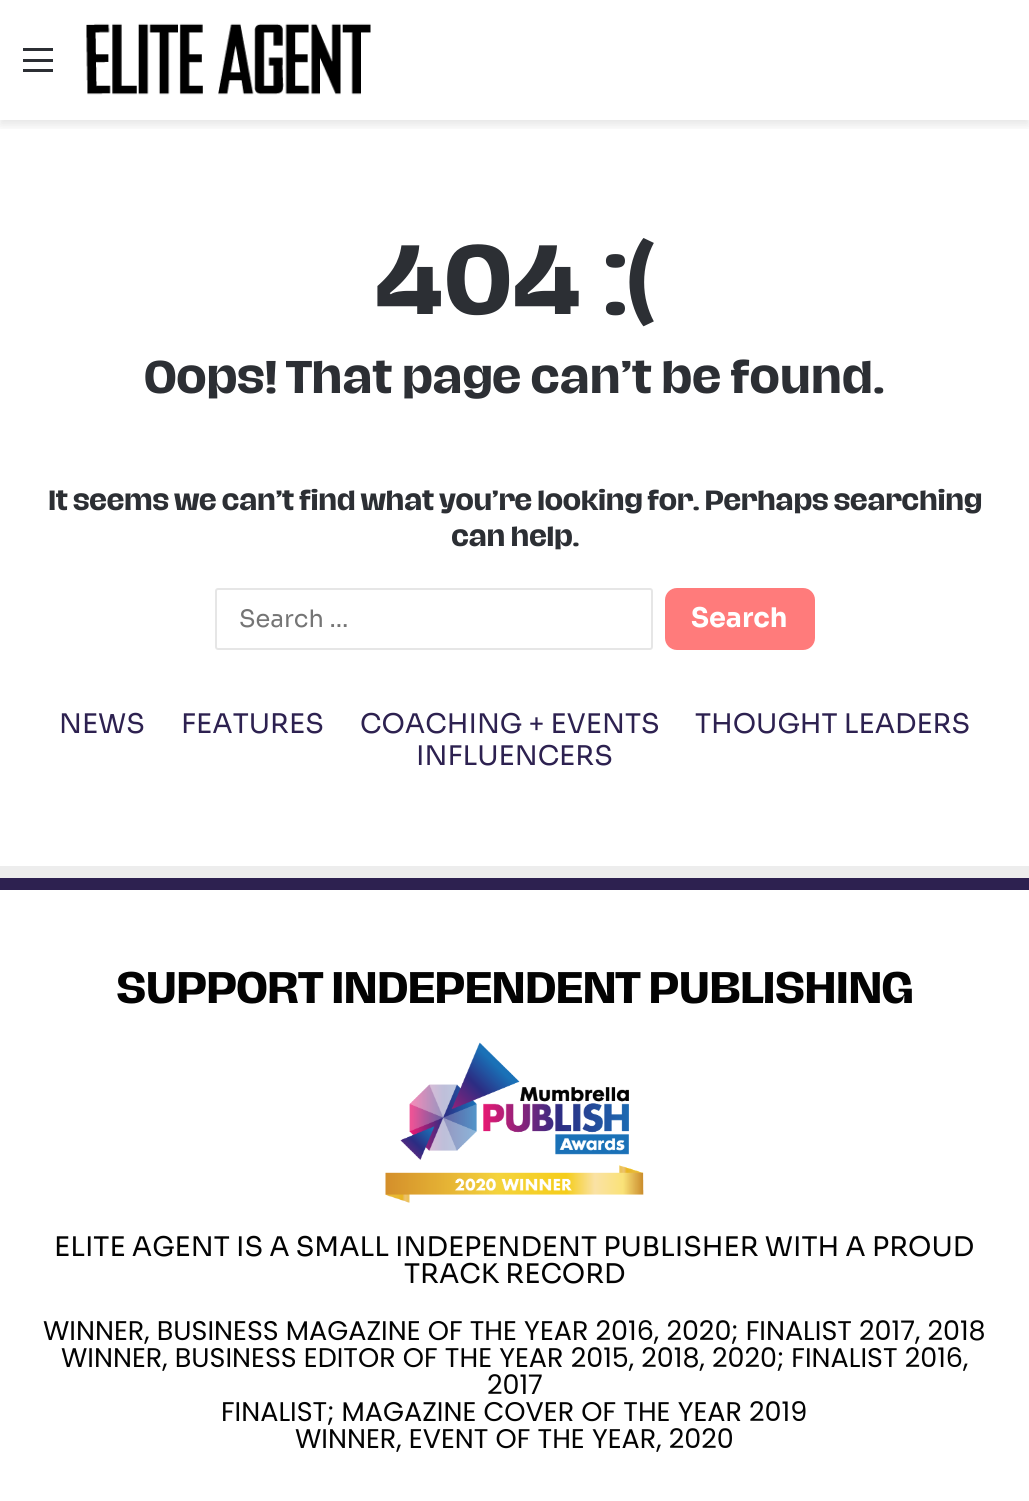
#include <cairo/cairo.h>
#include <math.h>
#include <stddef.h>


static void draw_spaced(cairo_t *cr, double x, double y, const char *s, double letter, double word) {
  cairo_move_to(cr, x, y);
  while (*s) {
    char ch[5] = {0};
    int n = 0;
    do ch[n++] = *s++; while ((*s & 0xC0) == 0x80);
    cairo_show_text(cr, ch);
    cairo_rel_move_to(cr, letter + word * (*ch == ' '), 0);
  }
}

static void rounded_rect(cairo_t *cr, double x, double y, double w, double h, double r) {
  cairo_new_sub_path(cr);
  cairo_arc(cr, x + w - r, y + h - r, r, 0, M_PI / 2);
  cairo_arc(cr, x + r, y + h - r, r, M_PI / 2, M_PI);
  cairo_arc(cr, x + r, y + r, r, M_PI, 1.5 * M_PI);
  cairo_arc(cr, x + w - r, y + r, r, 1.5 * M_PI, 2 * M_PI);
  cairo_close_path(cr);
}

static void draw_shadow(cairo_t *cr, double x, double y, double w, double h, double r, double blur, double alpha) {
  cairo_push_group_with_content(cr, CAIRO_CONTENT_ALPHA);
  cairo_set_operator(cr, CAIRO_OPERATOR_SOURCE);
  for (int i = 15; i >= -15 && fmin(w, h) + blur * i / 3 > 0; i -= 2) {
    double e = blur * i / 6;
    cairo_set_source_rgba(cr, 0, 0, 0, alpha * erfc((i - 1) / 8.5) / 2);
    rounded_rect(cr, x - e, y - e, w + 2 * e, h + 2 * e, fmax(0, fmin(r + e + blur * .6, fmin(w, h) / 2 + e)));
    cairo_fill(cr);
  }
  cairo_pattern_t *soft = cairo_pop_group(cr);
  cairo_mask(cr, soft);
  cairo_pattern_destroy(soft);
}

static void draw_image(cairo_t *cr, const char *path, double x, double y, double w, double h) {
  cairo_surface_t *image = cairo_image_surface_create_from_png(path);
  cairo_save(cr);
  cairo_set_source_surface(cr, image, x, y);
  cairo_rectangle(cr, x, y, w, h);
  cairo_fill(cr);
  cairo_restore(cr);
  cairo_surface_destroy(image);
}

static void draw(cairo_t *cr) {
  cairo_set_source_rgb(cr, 1, 1, 1);
  cairo_paint(cr);
  cairo_save(cr);
  cairo_rectangle(cr, 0, 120, 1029, 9);
  cairo_clip(cr);
  cairo_set_source_rgb(cr, 0, 0, 0);
  draw_shadow(cr, 0, 5, 1029, 120, 0, 5, 0.1);
  cairo_restore(cr);
  cairo_set_source_rgb(cr, 44 / 255.0, 47 / 255.0, 52 / 255.0);
  cairo_rectangle(cr, 23, 59, 30, 3);
  cairo_fill(cr);
  cairo_rectangle(cr, 23, 48, 30, 3);
  cairo_fill(cr);
  cairo_rectangle(cr, 23, 69, 30, 3);
  cairo_fill(cr);
  draw_image(cr, "images/1.png", 86, 23, 285, 72);
  rounded_rect(cr, 216, 589, 436, 60, 2);
  cairo_set_source_rgb(cr, 230 / 255.0, 230 / 255.0, 230 / 255.0);
  cairo_stroke(cr);
  cairo_set_source_rgb(cr, 1, 123 / 255.0, 123 / 255.0);
  rounded_rect(cr, 665, 588, 150, 62, 12);
  cairo_fill(cr);
  cairo_set_source_rgb(cr, 237 / 255.0, 237 / 255.0, 237 / 255.0);
  cairo_rectangle(cr, 0, 866, 1029, 12);
  cairo_fill(cr);
  cairo_set_source_rgb(cr, 45 / 255.0, 33 / 255.0, 80 / 255.0);
  cairo_rectangle(cr, 0, 878, 1029, 12);
  cairo_fill(cr);
  draw_image(cr, "images/2.png", 385, 1042, 259, 161);
  cairo_select_font_face(cr, "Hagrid", CAIRO_FONT_SLANT_NORMAL, CAIRO_FONT_WEIGHT_BOLD);
  cairo_set_font_size(cr, 90);
  cairo_set_source_rgb(cr, 44 / 255.0, 47 / 255.0, 52 / 255.0);
  draw_spaced(cr, 374, 314, "404 :(", -0.75, 0);
  cairo_set_font_size(cr, 42);
  draw_spaced(cr, 144, 393, "Oops! That page can’t be found.", -0.75, 0);
  cairo_set_font_size(cr, 25.5);
  draw_spaced(cr, 48, 510, "It seems we can’t find what you’re looking for. Perhaps searching", -0.75, 0);
  draw_spaced(cr, 451, 546, "can help.", -0.75, 0);
  cairo_select_font_face(cr, "Sora", CAIRO_FONT_SLANT_NORMAL, CAIRO_FONT_WEIGHT_NORMAL);
  cairo_set_font_size(cr, 24);
  cairo_set_source_rgb(cr, 117 / 255.0, 117 / 255.0, 117 / 255.0);
  cairo_move_to(cr, 239, 627);
  cairo_show_text(cr, "Search …");
  cairo_select_font_face(cr, "Sora", CAIRO_FONT_SLANT_NORMAL, CAIRO_FONT_WEIGHT_BOLD);
  cairo_set_font_size(cr, 27);
  cairo_set_source_rgb(cr, 1, 1, 1);
  cairo_move_to(cr, 691, 627);
  cairo_show_text(cr, "Search");
  cairo_select_font_face(cr, "Sora", CAIRO_FONT_SLANT_NORMAL, CAIRO_FONT_WEIGHT_NORMAL);
  cairo_set_source_rgb(cr, 45 / 255.0, 33 / 255.0, 80 / 255.0);
  cairo_move_to(cr, 59, 733);
  cairo_show_text(cr, "NEWS");
  cairo_move_to(cr, 181, 733);
  cairo_show_text(cr, "FEATURES");
  cairo_move_to(cr, 360, 733);
  cairo_show_text(cr, "COACHING + EVENTS");
  cairo_move_to(cr, 695, 733);
  cairo_show_text(cr, "THOUGHT LEADERS");
  cairo_move_to(cr, 416, 765);
  cairo_show_text(cr, "INFLUENCERS");
  cairo_select_font_face(cr, "Hagrid", CAIRO_FONT_SLANT_NORMAL, CAIRO_FONT_WEIGHT_BOLD);
  cairo_set_font_size(cr, 40.5);
  cairo_set_source_rgb(cr, 3 / 255.0, 3 / 255.0, 3 / 255.0);
  draw_spaced(cr, 116, 1003, "SUPPORT INDEPENDENT PUBLISHING", -0.75, 0);
  cairo_select_font_face(cr, "Sora", CAIRO_FONT_SLANT_NORMAL, CAIRO_FONT_WEIGHT_NORMAL);
  cairo_set_font_size(cr, 27);
  cairo_move_to(cr, 54, 1256);
  cairo_show_text(cr, "ELITE AGENT IS A SMALL INDEPENDENT PUBLISHER WITH A PROUD");
  cairo_move_to(cr, 404, 1283);
  cairo_show_text(cr, "TRACK RECORD");
  cairo_select_font_face(cr, "Poppins", CAIRO_FONT_SLANT_NORMAL, CAIRO_FONT_WEIGHT_NORMAL);
  cairo_move_to(cr, 43, 1340);
  cairo_show_text(cr, "WINNER, BUSINESS MAGAZINE OF THE YEAR 2016, 2020; FINALIST 2017, 2018");
  cairo_move_to(cr, 61, 1367);
  cairo_show_text(cr, "WINNER, BUSINESS EDITOR OF THE YEAR 2015, 2018, 2020; FINALIST 2016,");
  cairo_move_to(cr, 487, 1394);
  cairo_show_text(cr, "2017");
  cairo_move_to(cr, 221, 1421);
  cairo_show_text(cr, "FINALIST; MAGAZINE COVER OF THE YEAR 2019");
  cairo_move_to(cr, 295, 1448);
  cairo_show_text(cr, "WINNER, EVENT OF THE YEAR, 2020");
}

int main(void) {
  cairo_surface_t *surface = cairo_image_surface_create(CAIRO_FORMAT_RGB24, 1029, 1501);
  cairo_t *cr = cairo_create(surface);
  cairo_font_options_t *options = cairo_font_options_create();
  cairo_font_options_set_hint_metrics(options, CAIRO_HINT_METRICS_OFF);
  cairo_font_options_set_hint_style(options, CAIRO_HINT_STYLE_NONE);
  cairo_set_font_options(cr, options);
  cairo_set_miter_limit(cr, 4);
  draw(cr);
  cairo_surface_write_to_png(surface, "out.png");
  cairo_font_options_destroy(options);
  cairo_destroy(cr);
  cairo_surface_destroy(surface);
  return 0;
}
